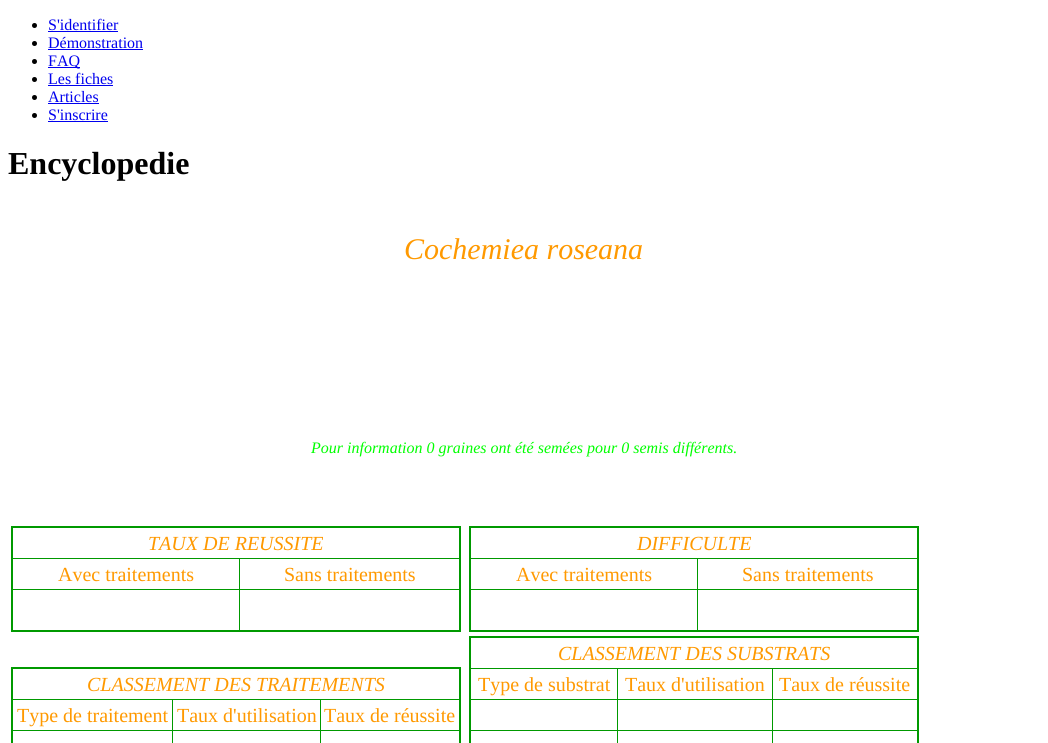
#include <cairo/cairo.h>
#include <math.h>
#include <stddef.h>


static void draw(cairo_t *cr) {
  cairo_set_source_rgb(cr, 1, 1, 1);
  cairo_paint(cr);
  cairo_set_source_rgb(cr, 0, 0, 0);
  cairo_arc(cr, 34.5, 25.5, 2.5, 0, 2 * M_PI);
  cairo_fill(cr);
  cairo_set_source_rgb(cr, 0, 0, 238 / 255.0);
  cairo_rectangle(cr, 48, 31, 70, 1);
  cairo_fill(cr);
  cairo_set_source_rgb(cr, 0, 0, 0);
  cairo_arc(cr, 34.5, 43.5, 2.5, 0, 2 * M_PI);
  cairo_fill(cr);
  cairo_set_source_rgb(cr, 0, 0, 238 / 255.0);
  cairo_rectangle(cr, 48, 49, 95, 1);
  cairo_fill(cr);
  cairo_set_source_rgb(cr, 0, 0, 0);
  cairo_arc(cr, 34.5, 61.5, 2.5, 0, 2 * M_PI);
  cairo_fill(cr);
  cairo_set_source_rgb(cr, 0, 0, 238 / 255.0);
  cairo_rectangle(cr, 48, 67, 32, 1);
  cairo_fill(cr);
  cairo_set_source_rgb(cr, 0, 0, 0);
  cairo_arc(cr, 34.5, 79.5, 2.5, 0, 2 * M_PI);
  cairo_fill(cr);
  cairo_set_source_rgb(cr, 0, 0, 238 / 255.0);
  cairo_rectangle(cr, 48, 85, 65, 1);
  cairo_fill(cr);
  cairo_set_source_rgb(cr, 0, 0, 0);
  cairo_arc(cr, 34.5, 97.5, 2.5, 0, 2 * M_PI);
  cairo_fill(cr);
  cairo_set_source_rgb(cr, 0, 0, 238 / 255.0);
  cairo_rectangle(cr, 48, 103, 51, 1);
  cairo_fill(cr);
  cairo_set_source_rgb(cr, 0, 0, 0);
  cairo_arc(cr, 34.5, 115.5, 2.5, 0, 2 * M_PI);
  cairo_fill(cr);
  cairo_set_source_rgb(cr, 0, 0, 238 / 255.0);
  cairo_rectangle(cr, 48, 121, 60, 1);
  cairo_fill(cr);
  cairo_set_source_rgb(cr, 0, 153 / 255.0, 0);
  cairo_rectangle(cr, 11, 526, 450, 2);
  cairo_fill(cr);
  cairo_rectangle(cr, 239, 558, 222, 1);
  cairo_fill(cr);
  cairo_rectangle(cr, 239, 589, 222, 1);
  cairo_fill(cr);
  cairo_rectangle(cr, 459, 526, 2, 106);
  cairo_fill(cr);
  cairo_rectangle(cr, 239, 589, 1, 43);
  cairo_fill(cr);
  cairo_rectangle(cr, 11, 630, 450, 2);
  cairo_fill(cr);
  cairo_rectangle(cr, 12, 589, 228, 1);
  cairo_fill(cr);
  cairo_rectangle(cr, 239, 558, 1, 32);
  cairo_fill(cr);
  cairo_rectangle(cr, 12, 558, 228, 1);
  cairo_fill(cr);
  cairo_rectangle(cr, 11, 526, 2, 106);
  cairo_fill(cr);
  cairo_rectangle(cr, 469, 526, 450, 2);
  cairo_fill(cr);
  cairo_rectangle(cr, 697, 558, 222, 1);
  cairo_fill(cr);
  cairo_rectangle(cr, 697, 589, 222, 1);
  cairo_fill(cr);
  cairo_rectangle(cr, 917, 526, 2, 106);
  cairo_fill(cr);
  cairo_rectangle(cr, 697, 589, 1, 43);
  cairo_fill(cr);
  cairo_rectangle(cr, 469, 630, 450, 2);
  cairo_fill(cr);
  cairo_rectangle(cr, 470, 589, 228, 1);
  cairo_fill(cr);
  cairo_rectangle(cr, 697, 558, 1, 32);
  cairo_fill(cr);
  cairo_rectangle(cr, 470, 558, 228, 1);
  cairo_fill(cr);
  cairo_rectangle(cr, 469, 526, 2, 106);
  cairo_fill(cr);
  cairo_rectangle(cr, 469, 636, 450, 2);
  cairo_fill(cr);
  cairo_rectangle(cr, 772, 668, 147, 1);
  cairo_fill(cr);
  cairo_rectangle(cr, 772, 699, 147, 1);
  cairo_fill(cr);
  cairo_rectangle(cr, 772, 730, 147, 1);
  cairo_fill(cr);
  cairo_rectangle(cr, 917, 636, 2, 107);
  cairo_fill(cr);
  cairo_rectangle(cr, 772, 730, 1, 13);
  cairo_fill(cr);
  cairo_rectangle(cr, 617, 730, 156, 1);
  cairo_fill(cr);
  cairo_rectangle(cr, 772, 699, 1, 32);
  cairo_fill(cr);
  cairo_rectangle(cr, 617, 699, 156, 1);
  cairo_fill(cr);
  cairo_rectangle(cr, 772, 668, 1, 32);
  cairo_fill(cr);
  cairo_rectangle(cr, 617, 668, 156, 1);
  cairo_fill(cr);
  cairo_rectangle(cr, 617, 730, 1, 13);
  cairo_fill(cr);
  cairo_rectangle(cr, 470, 730, 148, 1);
  cairo_fill(cr);
  cairo_rectangle(cr, 617, 699, 1, 32);
  cairo_fill(cr);
  cairo_rectangle(cr, 470, 699, 148, 1);
  cairo_fill(cr);
  cairo_rectangle(cr, 617, 668, 1, 32);
  cairo_fill(cr);
  cairo_rectangle(cr, 470, 668, 148, 1);
  cairo_fill(cr);
  cairo_rectangle(cr, 469, 636, 2, 107);
  cairo_fill(cr);
  cairo_rectangle(cr, 11, 667, 450, 2);
  cairo_fill(cr);
  cairo_rectangle(cr, 320, 699, 141, 1);
  cairo_fill(cr);
  cairo_rectangle(cr, 320, 730, 141, 1);
  cairo_fill(cr);
  cairo_rectangle(cr, 459, 667, 2, 76);
  cairo_fill(cr);
  cairo_rectangle(cr, 320, 730, 1, 13);
  cairo_fill(cr);
  cairo_rectangle(cr, 172, 730, 149, 1);
  cairo_fill(cr);
  cairo_rectangle(cr, 320, 699, 1, 32);
  cairo_fill(cr);
  cairo_rectangle(cr, 172, 699, 149, 1);
  cairo_fill(cr);
  cairo_rectangle(cr, 172, 730, 1, 13);
  cairo_fill(cr);
  cairo_rectangle(cr, 12, 730, 161, 1);
  cairo_fill(cr);
  cairo_rectangle(cr, 172, 699, 1, 32);
  cairo_fill(cr);
  cairo_rectangle(cr, 12, 699, 161, 1);
  cairo_fill(cr);
  cairo_rectangle(cr, 11, 667, 2, 76);
  cairo_fill(cr);
  cairo_select_font_face(cr, "Liberation Serif", CAIRO_FONT_SLANT_NORMAL, CAIRO_FONT_WEIGHT_NORMAL);
  cairo_set_font_size(cr, 16);
  cairo_set_source_rgb(cr, 0, 0, 238 / 255.0);
  cairo_move_to(cr, 48, 30);
  cairo_show_text(cr, "S'identifier");
  cairo_move_to(cr, 48, 48);
  cairo_show_text(cr, "Démonstration");
  cairo_move_to(cr, 48, 66);
  cairo_show_text(cr, "FAQ");
  cairo_move_to(cr, 48, 84);
  cairo_show_text(cr, "Les fiches");
  cairo_move_to(cr, 48, 102);
  cairo_show_text(cr, "Articles");
  cairo_move_to(cr, 48, 120);
  cairo_show_text(cr, "S'inscrire");
  cairo_select_font_face(cr, "Liberation Serif", CAIRO_FONT_SLANT_NORMAL, CAIRO_FONT_WEIGHT_BOLD);
  cairo_set_font_size(cr, 32);
  cairo_set_source_rgb(cr, 0, 0, 0);
  cairo_move_to(cr, 8, 174);
  cairo_show_text(cr, "Encyclopedie");
  cairo_select_font_face(cr, "Liberation Serif", CAIRO_FONT_SLANT_ITALIC, CAIRO_FONT_WEIGHT_NORMAL);
  cairo_set_font_size(cr, 30);
  cairo_set_source_rgb(cr, 1, 153 / 255.0, 0);
  cairo_move_to(cr, 404, 259);
  cairo_show_text(cr, "Cochemiea roseana");
  cairo_set_font_size(cr, 16);
  cairo_set_source_rgb(cr, 0, 1, 0);
  cairo_move_to(cr, 311, 453);
  cairo_show_text(cr, "Pour information 0 graines ont été semées pour 0 semis différents.");
  cairo_set_font_size(cr, 20);
  cairo_set_source_rgb(cr, 1, 153 / 255.0, 0);
  cairo_move_to(cr, 148, 550);
  cairo_show_text(cr, "TAUX DE REUSSITE");
  cairo_select_font_face(cr, "Liberation Serif", CAIRO_FONT_SLANT_NORMAL, CAIRO_FONT_WEIGHT_NORMAL);
  cairo_move_to(cr, 58, 581);
  cairo_show_text(cr, "Avec traitements");
  cairo_move_to(cr, 284, 581);
  cairo_show_text(cr, "Sans traitements");
  cairo_select_font_face(cr, "Liberation Serif", CAIRO_FONT_SLANT_ITALIC, CAIRO_FONT_WEIGHT_NORMAL);
  cairo_move_to(cr, 637, 550);
  cairo_show_text(cr, "DIFFICULTE");
  cairo_select_font_face(cr, "Liberation Serif", CAIRO_FONT_SLANT_NORMAL, CAIRO_FONT_WEIGHT_NORMAL);
  cairo_move_to(cr, 516, 581);
  cairo_show_text(cr, "Avec traitements");
  cairo_move_to(cr, 742, 581);
  cairo_show_text(cr, "Sans traitements");
  cairo_select_font_face(cr, "Liberation Serif", CAIRO_FONT_SLANT_ITALIC, CAIRO_FONT_WEIGHT_NORMAL);
  cairo_move_to(cr, 558, 660);
  cairo_show_text(cr, "CLASSEMENT DES SUBSTRATS");
  cairo_select_font_face(cr, "Liberation Serif", CAIRO_FONT_SLANT_NORMAL, CAIRO_FONT_WEIGHT_NORMAL);
  cairo_move_to(cr, 478, 691);
  cairo_show_text(cr, "Type de substrat");
  cairo_move_to(cr, 625, 691);
  cairo_show_text(cr, "Taux d'utilisation");
  cairo_move_to(cr, 779, 691);
  cairo_show_text(cr, "Taux de réussite");
  cairo_select_font_face(cr, "Liberation Serif", CAIRO_FONT_SLANT_ITALIC, CAIRO_FONT_WEIGHT_NORMAL);
  cairo_move_to(cr, 87, 691);
  cairo_show_text(cr, "CLASSEMENT DES TRAITEMENTS");
  cairo_select_font_face(cr, "Liberation Serif", CAIRO_FONT_SLANT_NORMAL, CAIRO_FONT_WEIGHT_NORMAL);
  cairo_move_to(cr, 17, 722);
  cairo_show_text(cr, "Type de traitement");
  cairo_move_to(cr, 177, 722);
  cairo_show_text(cr, "Taux d'utilisation");
  cairo_move_to(cr, 324, 722);
  cairo_show_text(cr, "Taux de réussite");
}

int main(void) {
  cairo_surface_t *surface = cairo_image_surface_create(CAIRO_FORMAT_RGB24, 1048, 743);
  cairo_t *cr = cairo_create(surface);
  cairo_font_options_t *options = cairo_font_options_create();
  cairo_font_options_set_hint_metrics(options, CAIRO_HINT_METRICS_OFF);
  cairo_font_options_set_hint_style(options, CAIRO_HINT_STYLE_NONE);
  cairo_set_font_options(cr, options);
  cairo_set_miter_limit(cr, 4);
  draw(cr);
  cairo_surface_write_to_png(surface, "out.png");
  cairo_font_options_destroy(options);
  cairo_destroy(cr);
  cairo_surface_destroy(surface);
  return 0;
}
